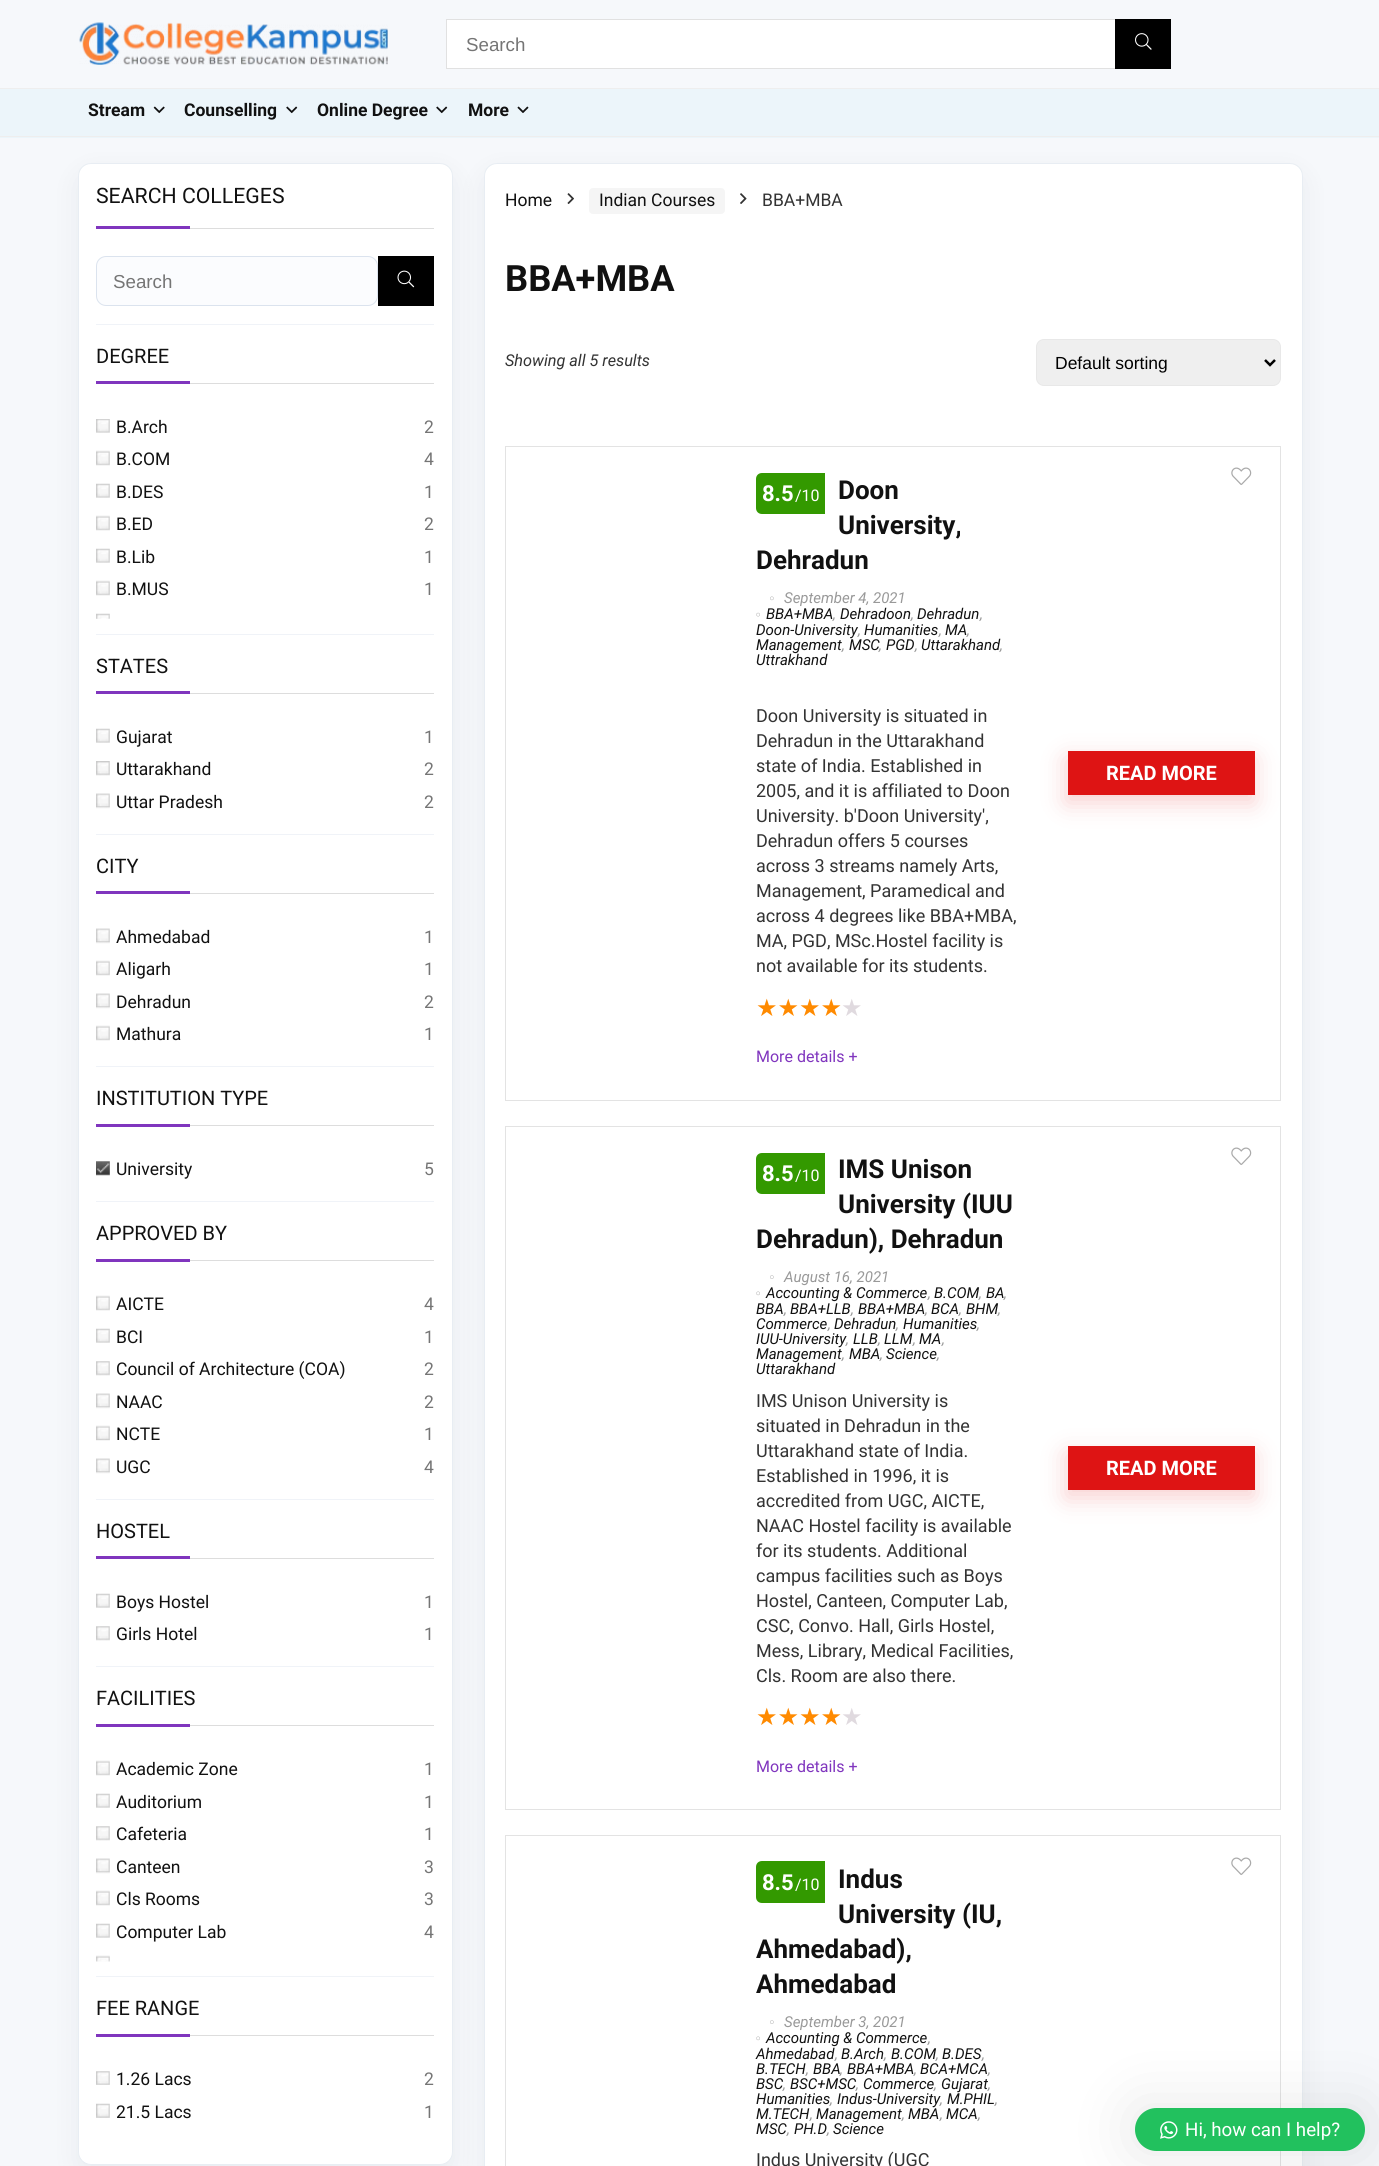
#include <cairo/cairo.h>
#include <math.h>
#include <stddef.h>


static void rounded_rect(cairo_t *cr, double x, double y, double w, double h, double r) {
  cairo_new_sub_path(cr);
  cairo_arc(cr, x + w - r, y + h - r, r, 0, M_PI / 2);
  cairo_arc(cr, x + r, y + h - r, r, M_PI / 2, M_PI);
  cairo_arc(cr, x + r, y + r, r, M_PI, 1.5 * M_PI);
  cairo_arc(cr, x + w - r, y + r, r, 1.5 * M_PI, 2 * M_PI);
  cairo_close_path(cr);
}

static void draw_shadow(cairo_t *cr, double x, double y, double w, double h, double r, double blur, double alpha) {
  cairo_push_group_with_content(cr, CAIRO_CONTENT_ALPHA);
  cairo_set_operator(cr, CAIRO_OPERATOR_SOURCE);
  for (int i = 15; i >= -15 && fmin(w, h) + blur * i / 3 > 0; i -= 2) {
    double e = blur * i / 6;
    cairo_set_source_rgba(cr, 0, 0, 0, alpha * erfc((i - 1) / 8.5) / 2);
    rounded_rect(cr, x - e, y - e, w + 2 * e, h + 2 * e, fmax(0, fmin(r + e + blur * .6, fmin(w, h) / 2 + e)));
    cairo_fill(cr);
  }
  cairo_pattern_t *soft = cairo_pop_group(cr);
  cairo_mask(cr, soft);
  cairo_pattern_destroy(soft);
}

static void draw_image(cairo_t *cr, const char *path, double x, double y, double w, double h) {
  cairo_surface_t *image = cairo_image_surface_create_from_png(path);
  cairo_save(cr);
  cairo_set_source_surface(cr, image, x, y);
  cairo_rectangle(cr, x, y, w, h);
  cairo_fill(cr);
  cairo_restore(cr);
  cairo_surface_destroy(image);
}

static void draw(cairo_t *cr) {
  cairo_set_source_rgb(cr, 246 / 255.0, 248 / 255.0, 251 / 255.0);
  cairo_paint(cr);
  draw_image(cr, "images/1.png", 79, 22, 309, 43);
  cairo_set_source_rgb(cr, 1, 1, 1);
  cairo_rectangle(cr, 447, 20, 668, 48);
  cairo_fill(cr);
  cairo_rectangle(cr, 446.5, 19.5, 724, 49);
  cairo_set_source_rgb(cr, 225 / 255.0, 225 / 255.0, 225 / 255.0);
  cairo_set_line_width(cr, 1);
  cairo_stroke(cr);
  cairo_set_source_rgb(cr, 0, 0, 0);
  cairo_rectangle(cr, 1115, 19, 56, 50);
  cairo_fill(cr);
  draw_image(cr, "images/2.png", 1135, 33, 17, 17);
  cairo_set_source_rgb(cr, 16 / 255.0, 24 / 255.0, 40 / 255.0);
  draw_shadow(cr, 78, 173, 375, 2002, 13, 14, 0.06);
  cairo_set_source_rgb(cr, 1, 1, 1);
  rounded_rect(cr, 78.5, 163.5, 374, 2001, 12.5);
  cairo_fill_preserve(cr);
  cairo_set_source_rgb(cr, 232 / 255.0, 237 / 255.0, 243 / 255.0);
  cairo_stroke(cr);
  cairo_set_source_rgb(cr, 16 / 255.0, 24 / 255.0, 40 / 255.0);
  draw_shadow(cr, 484, 173, 819, 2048, 13, 14, 0.06);
  cairo_set_source_rgb(cr, 236 / 255.0, 245 / 255.0, 250 / 255.0);
  cairo_rectangle(cr, 0, 89, 1379, 49);
  cairo_fill(cr);
  cairo_set_source_rgb(cr, 238 / 255.0, 238 / 255.0, 238 / 255.0);
  cairo_rectangle(cr, 0, 88, 1379, 1);
  cairo_fill(cr);
  cairo_rectangle(cr, 0, 136, 1379, 1);
  cairo_fill(cr);
  draw_image(cr, "images/3.png", 153, 106, 12, 8);
  draw_image(cr, "images/4.png", 286, 106, 12, 8);
  draw_image(cr, "images/4.png", 436, 106, 12, 8);
  draw_image(cr, "images/5.png", 517, 106, 12, 7);
  cairo_set_source_rgb(cr, 240 / 255.0, 243 / 255.0, 248 / 255.0);
  cairo_rectangle(cr, 96, 324, 338, 1);
  cairo_fill(cr);
  cairo_set_source_rgb(cr, 221 / 255.0, 221 / 255.0, 221 / 255.0);
  cairo_rectangle(cr, 190, 228, 244, 1);
  cairo_fill(cr);
  cairo_set_source_rgb(cr, 128 / 255.0, 53 / 255.0, 190 / 255.0);
  cairo_rectangle(cr, 96, 226, 94, 3);
  cairo_fill(cr);
  cairo_set_source_rgb(cr, 251 / 255.0, 252 / 255.0, 254 / 255.0);
  rounded_rect(cr, 96.5, 256.5, 281, 49, 9.5);
  cairo_fill_preserve(cr);
  cairo_set_source_rgb(cr, 219 / 255.0, 227 / 255.0, 238 / 255.0);
  cairo_stroke(cr);
  cairo_set_source_rgb(cr, 0, 0, 0);
  cairo_rectangle(cr, 378, 256, 56, 50);
  cairo_fill(cr);
  draw_image(cr, "images/6.png", 397, 270, 18, 18);
  cairo_set_source_rgb(cr, 240 / 255.0, 243 / 255.0, 248 / 255.0);
  cairo_rectangle(cr, 96, 634, 338, 1);
  cairo_fill(cr);
  cairo_set_source_rgb(cr, 221 / 255.0, 221 / 255.0, 221 / 255.0);
  cairo_rectangle(cr, 190, 383, 244, 1);
  cairo_fill(cr);
  cairo_set_source_rgb(cr, 128 / 255.0, 53 / 255.0, 190 / 255.0);
  cairo_rectangle(cr, 96, 381, 94, 3);
  cairo_fill(cr);
  draw_image(cr, "images/7.png", 96, 419, 14, 14);
  draw_image(cr, "images/8.png", 96, 450, 14, 16);
  draw_image(cr, "images/9.png", 96, 483, 14, 15);
  draw_image(cr, "images/8.png", 96, 515, 14, 16);
  draw_image(cr, "images/9.png", 96, 548, 14, 15);
  draw_image(cr, "images/8.png", 96, 580, 14, 16);
  draw_image(cr, "images/10.png", 96, 613, 14, 6);
  cairo_set_source_rgb(cr, 240 / 255.0, 243 / 255.0, 248 / 255.0);
  cairo_rectangle(cr, 96, 834, 338, 1);
  cairo_fill(cr);
  cairo_set_source_rgb(cr, 221 / 255.0, 221 / 255.0, 221 / 255.0);
  cairo_rectangle(cr, 190, 693, 244, 1);
  cairo_fill(cr);
  cairo_set_source_rgb(cr, 128 / 255.0, 53 / 255.0, 190 / 255.0);
  cairo_rectangle(cr, 96, 691, 94, 3);
  cairo_fill(cr);
  draw_image(cr, "images/9.png", 96, 728, 14, 15);
  draw_image(cr, "images/11.png", 96, 761, 14, 15);
  draw_image(cr, "images/12.png", 96, 793, 14, 16);
  cairo_set_source_rgb(cr, 240 / 255.0, 243 / 255.0, 248 / 255.0);
  cairo_rectangle(cr, 96, 1066, 338, 1);
  cairo_fill(cr);
  cairo_set_source_rgb(cr, 221 / 255.0, 221 / 255.0, 221 / 255.0);
  cairo_rectangle(cr, 190, 893, 244, 1);
  cairo_fill(cr);
  cairo_set_source_rgb(cr, 128 / 255.0, 53 / 255.0, 190 / 255.0);
  cairo_rectangle(cr, 96, 891, 94, 3);
  cairo_fill(cr);
  draw_image(cr, "images/12.png", 96, 928, 14, 16);
  draw_image(cr, "images/8.png", 96, 960, 14, 16);
  draw_image(cr, "images/12.png", 96, 993, 14, 16);
  draw_image(cr, "images/8.png", 96, 1025, 14, 16);
  cairo_set_source_rgb(cr, 240 / 255.0, 243 / 255.0, 248 / 255.0);
  cairo_rectangle(cr, 96, 1201, 338, 1);
  cairo_fill(cr);
  cairo_set_source_rgb(cr, 221 / 255.0, 221 / 255.0, 221 / 255.0);
  cairo_rectangle(cr, 190, 1125, 244, 1);
  cairo_fill(cr);
  cairo_set_source_rgb(cr, 128 / 255.0, 53 / 255.0, 190 / 255.0);
  cairo_rectangle(cr, 96, 1124, 94, 3);
  cairo_fill(cr);
  draw_image(cr, "images/13.png", 96, 1161, 14, 15);
  cairo_set_source_rgb(cr, 240 / 255.0, 243 / 255.0, 248 / 255.0);
  cairo_rectangle(cr, 96, 1499, 338, 1);
  cairo_fill(cr);
  cairo_set_source_rgb(cr, 221 / 255.0, 221 / 255.0, 221 / 255.0);
  cairo_rectangle(cr, 190, 1260, 244, 1);
  cairo_fill(cr);
  cairo_set_source_rgb(cr, 128 / 255.0, 53 / 255.0, 190 / 255.0);
  cairo_rectangle(cr, 96, 1259, 94, 3);
  cairo_fill(cr);
  draw_image(cr, "images/8.png", 96, 1295, 14, 16);
  draw_image(cr, "images/9.png", 96, 1328, 14, 15);
  draw_image(cr, "images/14.png", 96, 1361, 14, 15);
  draw_image(cr, "images/12.png", 96, 1393, 14, 16);
  draw_image(cr, "images/15.png", 96, 1425, 14, 16);
  draw_image(cr, "images/12.png", 96, 1458, 14, 16);
  cairo_set_source_rgb(cr, 240 / 255.0, 243 / 255.0, 248 / 255.0);
  cairo_rectangle(cr, 96, 1666, 338, 1);
  cairo_fill(cr);
  cairo_set_source_rgb(cr, 221 / 255.0, 221 / 255.0, 221 / 255.0);
  cairo_rectangle(cr, 190, 1558, 244, 1);
  cairo_fill(cr);
  cairo_set_source_rgb(cr, 128 / 255.0, 53 / 255.0, 190 / 255.0);
  cairo_rectangle(cr, 96, 1556, 94, 3);
  cairo_fill(cr);
  draw_image(cr, "images/9.png", 96, 1593, 14, 15);
  draw_image(cr, "images/14.png", 96, 1626, 14, 15);
  cairo_set_source_rgb(cr, 240 / 255.0, 243 / 255.0, 248 / 255.0);
  cairo_rectangle(cr, 96, 1976, 338, 1);
  cairo_fill(cr);
  cairo_set_source_rgb(cr, 221 / 255.0, 221 / 255.0, 221 / 255.0);
  cairo_rectangle(cr, 190, 1725, 244, 1);
  cairo_fill(cr);
  cairo_set_source_rgb(cr, 128 / 255.0, 53 / 255.0, 190 / 255.0);
  cairo_rectangle(cr, 96, 1724, 94, 3);
  cairo_fill(cr);
  draw_image(cr, "images/8.png", 96, 1760, 14, 16);
  draw_image(cr, "images/9.png", 96, 1793, 14, 15);
  draw_image(cr, "images/14.png", 96, 1826, 14, 15);
  draw_image(cr, "images/12.png", 96, 1858, 14, 16);
  draw_image(cr, "images/8.png", 96, 1890, 14, 16);
  draw_image(cr, "images/9.png", 96, 1923, 14, 15);
  draw_image(cr, "images/16.png", 96, 1955, 14, 7);
  cairo_set_source_rgb(cr, 221 / 255.0, 221 / 255.0, 221 / 255.0);
  cairo_rectangle(cr, 190, 2035, 244, 1);
  cairo_fill(cr);
  cairo_set_source_rgb(cr, 128 / 255.0, 53 / 255.0, 190 / 255.0);
  cairo_rectangle(cr, 96, 2034, 94, 3);
  cairo_fill(cr);
  draw_image(cr, "images/17.png", 96, 2071, 14, 14);
  draw_image(cr, "images/18.png", 96, 2103, 14, 15);
  cairo_set_source_rgb(cr, 1, 1, 1);
  rounded_rect(cr, 484.5, 163.5, 818, 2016, 12.5);
  cairo_fill_preserve(cr);
  cairo_set_source_rgb(cr, 232 / 255.0, 237 / 255.0, 243 / 255.0);
  cairo_stroke(cr);
  draw_image(cr, "images/19.png", 567, 193, 7, 11);
  cairo_set_source_rgb(cr, 245 / 255.0, 245 / 255.0, 245 / 255.0);
  rounded_rect(cr, 589, 188, 136, 26, 4);
  cairo_fill(cr);
  draw_image(cr, "images/20.png", 740, 193, 7, 11);
  cairo_set_source_rgb(cr, 239 / 255.0, 239 / 255.0, 239 / 255.0);
  rounded_rect(cr, 1036.5, 339.5, 244, 46, 7.5);
  cairo_fill_preserve(cr);
  cairo_set_source_rgb(cr, 232 / 255.0, 232 / 255.0, 232 / 255.0);
  cairo_stroke(cr);
  cairo_new_path(cr);
  cairo_move_to(cr, 1265, 360);
  cairo_line_to(cr, 1270, 365);
  cairo_line_to(cr, 1275, 360);
  cairo_set_source_rgb(cr, 0, 0, 0);
  cairo_set_line_width(cr, 2.5);
  cairo_stroke(cr);
  cairo_rectangle(cr, 505.5, 446.5, 775, 654);
  cairo_set_source_rgb(cr, 227 / 255.0, 227 / 255.0, 227 / 255.0);
  cairo_set_line_width(cr, 1);
  cairo_stroke(cr);
  draw_image(cr, "images/21.png", 1231, 467, 21, 18);
  cairo_set_source_rgb(cr, 51 / 255.0, 153 / 255.0, 0);
  cairo_new_path(cr);
  cairo_move_to(cr, 762, 473);
  cairo_line_to(cr, 825, 473);
  cairo_line_to(cr, 825, 514);
  cairo_line_to(cr, 762, 514);
  cairo_curve_to(cr, 758.5, 514, 756, 511.5, 756, 508);
  cairo_line_to(cr, 756, 479);
  cairo_curve_to(cr, 756, 475.5, 758.5, 473, 762, 473);
  cairo_close_path(cr);
  cairo_fill(cr);
  draw_image(cr, "images/22.png", 770, 596, 4, 5);
  draw_image(cr, "images/23.png", 756, 612, 4, 5);
  cairo_set_source_rgb(cr, 222 / 255.0, 20 / 255.0, 20 / 255.0);
  draw_shadow(cr, 1066, 759, 188, 44, 0, 12, 0.2);
  cairo_set_source_rgb(cr, 222 / 255.0, 20 / 255.0, 20 / 255.0);
  cairo_rectangle(cr, 1068, 751, 187, 44);
  cairo_fill(cr);
  cairo_rectangle(cr, 505.5, 1126.5, 775, 683);
  cairo_set_source_rgb(cr, 227 / 255.0, 227 / 255.0, 227 / 255.0);
  cairo_stroke(cr);
  draw_image(cr, "images/21.png", 1231, 1147, 21, 18);
  cairo_set_source_rgb(cr, 51 / 255.0, 153 / 255.0, 0);
  cairo_new_path(cr);
  cairo_move_to(cr, 762, 1153);
  cairo_line_to(cr, 825, 1153);
  cairo_line_to(cr, 825, 1194);
  cairo_line_to(cr, 762, 1194);
  cairo_curve_to(cr, 758.5, 1194, 756, 1191.5, 756, 1188);
  cairo_line_to(cr, 756, 1159);
  cairo_curve_to(cr, 756, 1155.5, 758.5, 1153, 762, 1153);
  cairo_close_path(cr);
  cairo_fill(cr);
  draw_image(cr, "images/24.png", 770, 1275, 4, 4);
  draw_image(cr, "images/25.png", 756, 1291, 4, 5);
  cairo_set_source_rgb(cr, 222 / 255.0, 20 / 255.0, 20 / 255.0);
  draw_shadow(cr, 1066, 1454, 188, 44, 0, 12, 0.2);
  cairo_set_source_rgb(cr, 222 / 255.0, 20 / 255.0, 20 / 255.0);
  cairo_rectangle(cr, 1068, 1446, 187, 44);
  cairo_fill(cr);
  cairo_rectangle(cr, 505.5, 1835.5, 775, 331);
  cairo_set_source_rgb(cr, 227 / 255.0, 227 / 255.0, 227 / 255.0);
  cairo_stroke(cr);
  draw_image(cr, "images/21.png", 1231, 1857, 21, 18);
  cairo_set_source_rgb(cr, 51 / 255.0, 153 / 255.0, 0);
  cairo_new_path(cr);
  cairo_move_to(cr, 762, 1861);
  cairo_line_to(cr, 825, 1861);
  cairo_line_to(cr, 825, 1903);
  cairo_line_to(cr, 762, 1903);
  cairo_curve_to(cr, 758.5, 1903, 756, 1900.5, 756, 1897);
  cairo_line_to(cr, 756, 1867);
  cairo_curve_to(cr, 756, 1863.5, 758.5, 1861, 762, 1861);
  cairo_close_path(cr);
  cairo_fill(cr);
  draw_image(cr, "images/24.png", 770, 2020, 4, 4);
  draw_image(cr, "images/25.png", 756, 2036, 4, 5);
  cairo_set_source_rgb(cr, 0, 0, 0);
  draw_shadow(cr, 1135, 2108, 230, 43, 21.5, 31, 0.1);
  cairo_set_source_rgb(cr, 34 / 255.0, 193 / 255.0, 94 / 255.0);
  rounded_rect(cr, 1135, 2108, 230, 43, 21.5);
  cairo_fill(cr);
  draw_image(cr, "images/26.png", 1160, 2121, 18, 18);
  cairo_select_font_face(cr, "Liberation Sans", CAIRO_FONT_SLANT_NORMAL, CAIRO_FONT_WEIGHT_NORMAL);
  cairo_set_font_size(cr, 18.75);
  cairo_set_source_rgb(cr, 117 / 255.0, 117 / 255.0, 117 / 255.0);
  cairo_move_to(cr, 466, 51);
  cairo_show_text(cr, "Search");
  cairo_select_font_face(cr, "Roboto", CAIRO_FONT_SLANT_NORMAL, CAIRO_FONT_WEIGHT_BOLD);
  cairo_set_font_size(cr, 17.5);
  cairo_set_source_rgb(cr, 17 / 255.0, 17 / 255.0, 17 / 255.0);
  cairo_move_to(cr, 88, 116);
  cairo_show_text(cr, "Stream");
  cairo_move_to(cr, 184, 116);
  cairo_show_text(cr, "Counselling");
  cairo_move_to(cr, 317, 116);
  cairo_show_text(cr, "Online Degree");
  cairo_move_to(cr, 468, 116);
  cairo_show_text(cr, "More");
  cairo_select_font_face(cr, "Roboto", CAIRO_FONT_SLANT_NORMAL, CAIRO_FONT_WEIGHT_NORMAL);
  cairo_set_font_size(cr, 21.25);
  cairo_move_to(cr, 96, 203);
  cairo_show_text(cr, "SEARCH COLLEGES");
  cairo_select_font_face(cr, "Liberation Sans", CAIRO_FONT_SLANT_NORMAL, CAIRO_FONT_WEIGHT_NORMAL);
  cairo_set_font_size(cr, 18.75);
  cairo_set_source_rgb(cr, 117 / 255.0, 117 / 255.0, 117 / 255.0);
  cairo_move_to(cr, 113, 288);
  cairo_show_text(cr, "Search");
  cairo_select_font_face(cr, "Roboto", CAIRO_FONT_SLANT_NORMAL, CAIRO_FONT_WEIGHT_NORMAL);
  cairo_set_font_size(cr, 20);
  cairo_set_source_rgb(cr, 17 / 255.0, 17 / 255.0, 17 / 255.0);
  cairo_move_to(cr, 96, 363);
  cairo_show_text(cr, "DEGREE");
  cairo_set_font_size(cr, 17.5);
  cairo_move_to(cr, 116, 433);
  cairo_show_text(cr, "B.Arch");
  cairo_set_source_rgb(cr, 117 / 255.0, 117 / 255.0, 117 / 255.0);
  cairo_move_to(cr, 424, 433);
  cairo_show_text(cr, "2");
  cairo_set_source_rgb(cr, 17 / 255.0, 17 / 255.0, 17 / 255.0);
  cairo_move_to(cr, 116, 465);
  cairo_show_text(cr, "B.COM");
  cairo_set_source_rgb(cr, 117 / 255.0, 117 / 255.0, 117 / 255.0);
  cairo_move_to(cr, 424, 465);
  cairo_show_text(cr, "4");
  cairo_set_source_rgb(cr, 17 / 255.0, 17 / 255.0, 17 / 255.0);
  cairo_move_to(cr, 116, 498);
  cairo_show_text(cr, "B.DES");
  cairo_set_source_rgb(cr, 117 / 255.0, 117 / 255.0, 117 / 255.0);
  cairo_move_to(cr, 424, 498);
  cairo_show_text(cr, "1");
  cairo_set_source_rgb(cr, 17 / 255.0, 17 / 255.0, 17 / 255.0);
  cairo_move_to(cr, 116, 530);
  cairo_show_text(cr, "B.ED");
  cairo_set_source_rgb(cr, 117 / 255.0, 117 / 255.0, 117 / 255.0);
  cairo_move_to(cr, 424, 530);
  cairo_show_text(cr, "2");
  cairo_set_source_rgb(cr, 17 / 255.0, 17 / 255.0, 17 / 255.0);
  cairo_move_to(cr, 116, 563);
  cairo_show_text(cr, "B.Lib");
  cairo_set_source_rgb(cr, 117 / 255.0, 117 / 255.0, 117 / 255.0);
  cairo_move_to(cr, 424, 563);
  cairo_show_text(cr, "1");
  cairo_set_source_rgb(cr, 17 / 255.0, 17 / 255.0, 17 / 255.0);
  cairo_move_to(cr, 116, 595);
  cairo_show_text(cr, "B.MUS");
  cairo_set_source_rgb(cr, 117 / 255.0, 117 / 255.0, 117 / 255.0);
  cairo_move_to(cr, 424, 595);
  cairo_show_text(cr, "1");
  cairo_set_font_size(cr, 20);
  cairo_set_source_rgb(cr, 17 / 255.0, 17 / 255.0, 17 / 255.0);
  cairo_move_to(cr, 96, 673);
  cairo_show_text(cr, "STATES");
  cairo_set_font_size(cr, 17.5);
  cairo_move_to(cr, 116, 743);
  cairo_show_text(cr, "Gujarat");
  cairo_set_source_rgb(cr, 117 / 255.0, 117 / 255.0, 117 / 255.0);
  cairo_move_to(cr, 424, 743);
  cairo_show_text(cr, "1");
  cairo_set_source_rgb(cr, 17 / 255.0, 17 / 255.0, 17 / 255.0);
  cairo_move_to(cr, 116, 775);
  cairo_show_text(cr, "Uttarakhand");
  cairo_set_source_rgb(cr, 117 / 255.0, 117 / 255.0, 117 / 255.0);
  cairo_move_to(cr, 424, 775);
  cairo_show_text(cr, "2");
  cairo_set_source_rgb(cr, 17 / 255.0, 17 / 255.0, 17 / 255.0);
  cairo_move_to(cr, 116, 808);
  cairo_show_text(cr, "Uttar Pradesh");
  cairo_set_source_rgb(cr, 117 / 255.0, 117 / 255.0, 117 / 255.0);
  cairo_move_to(cr, 424, 808);
  cairo_show_text(cr, "2");
  cairo_set_font_size(cr, 20);
  cairo_set_source_rgb(cr, 17 / 255.0, 17 / 255.0, 17 / 255.0);
  cairo_move_to(cr, 96, 873);
  cairo_show_text(cr, "CITY");
  cairo_set_font_size(cr, 17.5);
  cairo_move_to(cr, 116, 943);
  cairo_show_text(cr, "Ahmedabad");
  cairo_set_source_rgb(cr, 117 / 255.0, 117 / 255.0, 117 / 255.0);
  cairo_move_to(cr, 424, 943);
  cairo_show_text(cr, "1");
  cairo_set_source_rgb(cr, 17 / 255.0, 17 / 255.0, 17 / 255.0);
  cairo_move_to(cr, 116, 975);
  cairo_show_text(cr, "Aligarh");
  cairo_set_source_rgb(cr, 117 / 255.0, 117 / 255.0, 117 / 255.0);
  cairo_move_to(cr, 424, 975);
  cairo_show_text(cr, "1");
  cairo_set_source_rgb(cr, 17 / 255.0, 17 / 255.0, 17 / 255.0);
  cairo_move_to(cr, 116, 1008);
  cairo_show_text(cr, "Dehradun");
  cairo_set_source_rgb(cr, 117 / 255.0, 117 / 255.0, 117 / 255.0);
  cairo_move_to(cr, 424, 1008);
  cairo_show_text(cr, "2");
  cairo_set_source_rgb(cr, 17 / 255.0, 17 / 255.0, 17 / 255.0);
  cairo_move_to(cr, 116, 1040);
  cairo_show_text(cr, "Mathura");
  cairo_set_source_rgb(cr, 117 / 255.0, 117 / 255.0, 117 / 255.0);
  cairo_move_to(cr, 424, 1040);
  cairo_show_text(cr, "1");
  cairo_set_font_size(cr, 20);
  cairo_set_source_rgb(cr, 17 / 255.0, 17 / 255.0, 17 / 255.0);
  cairo_move_to(cr, 96, 1105);
  cairo_show_text(cr, "INSTITUTION TYPE");
  cairo_set_font_size(cr, 17.5);
  cairo_move_to(cr, 116, 1175);
  cairo_show_text(cr, "University");
  cairo_set_source_rgb(cr, 117 / 255.0, 117 / 255.0, 117 / 255.0);
  cairo_move_to(cr, 424, 1175);
  cairo_show_text(cr, "5");
  cairo_set_font_size(cr, 20);
  cairo_set_source_rgb(cr, 17 / 255.0, 17 / 255.0, 17 / 255.0);
  cairo_move_to(cr, 96, 1240);
  cairo_show_text(cr, "APPROVED BY");
  cairo_set_font_size(cr, 17.5);
  cairo_move_to(cr, 116, 1310);
  cairo_show_text(cr, "AICTE");
  cairo_set_source_rgb(cr, 117 / 255.0, 117 / 255.0, 117 / 255.0);
  cairo_move_to(cr, 424, 1310);
  cairo_show_text(cr, "4");
  cairo_set_source_rgb(cr, 17 / 255.0, 17 / 255.0, 17 / 255.0);
  cairo_move_to(cr, 116, 1343);
  cairo_show_text(cr, "BCI");
  cairo_set_source_rgb(cr, 117 / 255.0, 117 / 255.0, 117 / 255.0);
  cairo_move_to(cr, 424, 1343);
  cairo_show_text(cr, "1");
  cairo_set_source_rgb(cr, 17 / 255.0, 17 / 255.0, 17 / 255.0);
  cairo_move_to(cr, 116, 1375);
  cairo_show_text(cr, "Council of Architecture (COA)");
  cairo_set_source_rgb(cr, 117 / 255.0, 117 / 255.0, 117 / 255.0);
  cairo_move_to(cr, 424, 1375);
  cairo_show_text(cr, "2");
  cairo_set_source_rgb(cr, 17 / 255.0, 17 / 255.0, 17 / 255.0);
  cairo_move_to(cr, 116, 1408);
  cairo_show_text(cr, "NAAC");
  cairo_set_source_rgb(cr, 117 / 255.0, 117 / 255.0, 117 / 255.0);
  cairo_move_to(cr, 424, 1408);
  cairo_show_text(cr, "2");
  cairo_set_source_rgb(cr, 17 / 255.0, 17 / 255.0, 17 / 255.0);
  cairo_move_to(cr, 116, 1440);
  cairo_show_text(cr, "NCTE");
  cairo_set_source_rgb(cr, 117 / 255.0, 117 / 255.0, 117 / 255.0);
  cairo_move_to(cr, 424, 1440);
  cairo_show_text(cr, "1");
  cairo_set_source_rgb(cr, 17 / 255.0, 17 / 255.0, 17 / 255.0);
  cairo_move_to(cr, 116, 1473);
  cairo_show_text(cr, "UGC");
  cairo_set_source_rgb(cr, 117 / 255.0, 117 / 255.0, 117 / 255.0);
  cairo_move_to(cr, 424, 1473);
  cairo_show_text(cr, "4");
  cairo_set_font_size(cr, 20);
  cairo_set_source_rgb(cr, 17 / 255.0, 17 / 255.0, 17 / 255.0);
  cairo_move_to(cr, 96, 1538);
  cairo_show_text(cr, "HOSTEL");
  cairo_set_font_size(cr, 17.5);
  cairo_move_to(cr, 116, 1608);
  cairo_show_text(cr, "Boys Hostel");
  cairo_set_source_rgb(cr, 117 / 255.0, 117 / 255.0, 117 / 255.0);
  cairo_move_to(cr, 424, 1608);
  cairo_show_text(cr, "1");
  cairo_set_source_rgb(cr, 17 / 255.0, 17 / 255.0, 17 / 255.0);
  cairo_move_to(cr, 116, 1640);
  cairo_show_text(cr, "Girls Hotel");
  cairo_set_source_rgb(cr, 117 / 255.0, 117 / 255.0, 117 / 255.0);
  cairo_move_to(cr, 424, 1640);
  cairo_show_text(cr, "1");
  cairo_set_font_size(cr, 20);
  cairo_set_source_rgb(cr, 17 / 255.0, 17 / 255.0, 17 / 255.0);
  cairo_move_to(cr, 96, 1705);
  cairo_show_text(cr, "FACILITIES");
  cairo_set_font_size(cr, 17.5);
  cairo_move_to(cr, 116, 1775);
  cairo_show_text(cr, "Academic Zone");
  cairo_set_source_rgb(cr, 117 / 255.0, 117 / 255.0, 117 / 255.0);
  cairo_move_to(cr, 424, 1775);
  cairo_show_text(cr, "1");
  cairo_set_source_rgb(cr, 17 / 255.0, 17 / 255.0, 17 / 255.0);
  cairo_move_to(cr, 116, 1808);
  cairo_show_text(cr, "Auditorium");
  cairo_set_source_rgb(cr, 117 / 255.0, 117 / 255.0, 117 / 255.0);
  cairo_move_to(cr, 424, 1808);
  cairo_show_text(cr, "1");
  cairo_set_source_rgb(cr, 17 / 255.0, 17 / 255.0, 17 / 255.0);
  cairo_move_to(cr, 116, 1840);
  cairo_show_text(cr, "Cafeteria");
  cairo_set_source_rgb(cr, 117 / 255.0, 117 / 255.0, 117 / 255.0);
  cairo_move_to(cr, 424, 1840);
  cairo_show_text(cr, "1");
  cairo_set_source_rgb(cr, 17 / 255.0, 17 / 255.0, 17 / 255.0);
  cairo_move_to(cr, 116, 1873);
  cairo_show_text(cr, "Canteen");
  cairo_set_source_rgb(cr, 117 / 255.0, 117 / 255.0, 117 / 255.0);
  cairo_move_to(cr, 424, 1873);
  cairo_show_text(cr, "3");
  cairo_set_source_rgb(cr, 17 / 255.0, 17 / 255.0, 17 / 255.0);
  cairo_move_to(cr, 116, 1905);
  cairo_show_text(cr, "Cls Rooms");
  cairo_set_source_rgb(cr, 117 / 255.0, 117 / 255.0, 117 / 255.0);
  cairo_move_to(cr, 424, 1905);
  cairo_show_text(cr, "3");
  cairo_set_source_rgb(cr, 17 / 255.0, 17 / 255.0, 17 / 255.0);
  cairo_move_to(cr, 116, 1938);
  cairo_show_text(cr, "Computer Lab");
  cairo_set_source_rgb(cr, 117 / 255.0, 117 / 255.0, 117 / 255.0);
  cairo_move_to(cr, 424, 1938);
  cairo_show_text(cr, "4");
  cairo_set_font_size(cr, 20);
  cairo_set_source_rgb(cr, 17 / 255.0, 17 / 255.0, 17 / 255.0);
  cairo_move_to(cr, 96, 2015);
  cairo_show_text(cr, "FEE RANGE");
  cairo_set_font_size(cr, 17.5);
  cairo_move_to(cr, 116, 2085);
  cairo_show_text(cr, "1.26 Lacs");
  cairo_set_source_rgb(cr, 117 / 255.0, 117 / 255.0, 117 / 255.0);
  cairo_move_to(cr, 424, 2085);
  cairo_show_text(cr, "2");
  cairo_set_source_rgb(cr, 17 / 255.0, 17 / 255.0, 17 / 255.0);
  cairo_move_to(cr, 116, 2118);
  cairo_show_text(cr, "21.5 Lacs");
  cairo_set_source_rgb(cr, 117 / 255.0, 117 / 255.0, 117 / 255.0);
  cairo_move_to(cr, 424, 2118);
  cairo_show_text(cr, "1");
  cairo_set_source_rgb(cr, 17 / 255.0, 17 / 255.0, 17 / 255.0);
  cairo_move_to(cr, 505, 206);
  cairo_show_text(cr, "Home");
  cairo_move_to(cr, 599, 206);
  cairo_show_text(cr, "Indian Courses");
  cairo_set_source_rgb(cr, 51 / 255.0, 51 / 255.0, 51 / 255.0);
  cairo_move_to(cr, 762, 206);
  cairo_show_text(cr, "BBA+MBA");
  cairo_select_font_face(cr, "Roboto", CAIRO_FONT_SLANT_NORMAL, CAIRO_FONT_WEIGHT_BOLD);
  cairo_set_font_size(cr, 36.25);
  cairo_set_source_rgb(cr, 17 / 255.0, 17 / 255.0, 17 / 255.0);
  cairo_move_to(cr, 505, 291);
  cairo_show_text(cr, "BBA+MBA");
  cairo_select_font_face(cr, "Roboto", CAIRO_FONT_SLANT_ITALIC, CAIRO_FONT_WEIGHT_NORMAL);
  cairo_set_font_size(cr, 16.25);
  cairo_set_source_rgb(cr, 51 / 255.0, 51 / 255.0, 51 / 255.0);
  cairo_move_to(cr, 505, 366);
  cairo_show_text(cr, "Showing all 5 results");
  cairo_select_font_face(cr, "Liberation Sans", CAIRO_FONT_SLANT_NORMAL, CAIRO_FONT_WEIGHT_NORMAL);
  cairo_set_font_size(cr, 17.5);
  cairo_set_source_rgb(cr, 0, 0, 0);
  cairo_move_to(cr, 1055, 369);
  cairo_show_text(cr, "Default sorting");
  cairo_select_font_face(cr, "Roboto", CAIRO_FONT_SLANT_NORMAL, CAIRO_FONT_WEIGHT_BOLD);
  cairo_set_font_size(cr, 26);
  cairo_set_source_rgb(cr, 17 / 255.0, 17 / 255.0, 17 / 255.0);
  cairo_move_to(cr, 838, 499);
  cairo_show_text(cr, "Doon");
  cairo_move_to(cr, 838, 534);
  cairo_show_text(cr, "University,");
  cairo_move_to(cr, 756, 569);
  cairo_show_text(cr, "Dehradun");
  cairo_set_font_size(cr, 22);
  cairo_set_source_rgb(cr, 1, 1, 1);
  cairo_move_to(cr, 762, 501);
  cairo_show_text(cr, "8.5");
  cairo_select_font_face(cr, "Roboto", CAIRO_FONT_SLANT_NORMAL, CAIRO_FONT_WEIGHT_NORMAL);
  cairo_set_font_size(cr, 16);
  cairo_move_to(cr, 795, 501);
  cairo_show_text(cr, "/10");
  cairo_select_font_face(cr, "Roboto", CAIRO_FONT_SLANT_ITALIC, CAIRO_FONT_WEIGHT_NORMAL);
  cairo_set_font_size(cr, 15);
  cairo_set_source_rgb(cr, 153 / 255.0, 153 / 255.0, 153 / 255.0);
  cairo_move_to(cr, 784, 603);
  cairo_show_text(cr, "September 4, 2021");
  cairo_set_source_rgb(cr, 17 / 255.0, 17 / 255.0, 17 / 255.0);
  cairo_move_to(cr, 766, 619);
  cairo_show_text(cr, "BBA+MBA");
  cairo_move_to(cr, 840, 619);
  cairo_show_text(cr, "Dehradoon");
  cairo_move_to(cr, 917, 619);
  cairo_show_text(cr, "Dehradun");
  cairo_set_source_rgb(cr, 153 / 255.0, 153 / 255.0, 153 / 255.0);
  cairo_move_to(cr, 833, 619);
  cairo_show_text(cr, ",");
  cairo_move_to(cr, 911, 619);
  cairo_show_text(cr, ",");
  cairo_move_to(cr, 980, 619);
  cairo_show_text(cr, ",");
  cairo_set_source_rgb(cr, 17 / 255.0, 17 / 255.0, 17 / 255.0);
  cairo_move_to(cr, 756, 635);
  cairo_show_text(cr, "Doon-University");
  cairo_move_to(cr, 864, 635);
  cairo_show_text(cr, "Humanities");
  cairo_move_to(cr, 945, 635);
  cairo_show_text(cr, "MA");
  cairo_set_source_rgb(cr, 153 / 255.0, 153 / 255.0, 153 / 255.0);
  cairo_move_to(cr, 858, 635);
  cairo_show_text(cr, ",");
  cairo_move_to(cr, 939, 635);
  cairo_show_text(cr, ",");
  cairo_move_to(cr, 967, 635);
  cairo_show_text(cr, ",");
  cairo_set_source_rgb(cr, 17 / 255.0, 17 / 255.0, 17 / 255.0);
  cairo_move_to(cr, 756, 650);
  cairo_show_text(cr, "Management");
  cairo_move_to(cr, 849, 650);
  cairo_show_text(cr, "MSC");
  cairo_move_to(cr, 886, 650);
  cairo_show_text(cr, "PGD");
  cairo_move_to(cr, 921, 650);
  cairo_show_text(cr, "Uttarakhand");
  cairo_set_source_rgb(cr, 153 / 255.0, 153 / 255.0, 153 / 255.0);
  cairo_move_to(cr, 842, 650);
  cairo_show_text(cr, ",");
  cairo_move_to(cr, 879, 650);
  cairo_show_text(cr, ",");
  cairo_move_to(cr, 915, 650);
  cairo_show_text(cr, ",");
  cairo_move_to(cr, 1000, 650);
  cairo_show_text(cr, ",");
  cairo_set_source_rgb(cr, 17 / 255.0, 17 / 255.0, 17 / 255.0);
  cairo_move_to(cr, 756, 665);
  cairo_show_text(cr, "Uttrakhand");
  cairo_select_font_face(cr, "Roboto", CAIRO_FONT_SLANT_NORMAL, CAIRO_FONT_WEIGHT_NORMAL);
  cairo_set_font_size(cr, 18);
  cairo_set_source_rgb(cr, 51 / 255.0, 51 / 255.0, 51 / 255.0);
  cairo_move_to(cr, 756, 722);
  cairo_show_text(cr, "Doon University is situated in");
  cairo_move_to(cr, 756, 747);
  cairo_show_text(cr, "Dehradun in the Uttarakhand");
  cairo_move_to(cr, 756, 772);
  cairo_show_text(cr, "state of India. Established in");
  cairo_move_to(cr, 756, 797);
  cairo_show_text(cr, "2005, and it is affiliated to Doon");
  cairo_move_to(cr, 756, 822);
  cairo_show_text(cr, "University. b'Doon University',");
  cairo_move_to(cr, 756, 847);
  cairo_show_text(cr, "Dehradun offers 5 courses");
  cairo_move_to(cr, 756, 872);
  cairo_show_text(cr, "across 3 streams namely Arts,");
  cairo_move_to(cr, 756, 897);
  cairo_show_text(cr, "Management, Paramedical and");
  cairo_move_to(cr, 756, 922);
  cairo_show_text(cr, "across 4 degrees like BBA+MBA,");
  cairo_move_to(cr, 756, 947);
  cairo_show_text(cr, "MA, PGD, MSc.Hostel facility is");
  cairo_move_to(cr, 756, 972);
  cairo_show_text(cr, "not available for its students.");
  cairo_select_font_face(cr, "DejaVu Sans", CAIRO_FONT_SLANT_NORMAL, CAIRO_FONT_WEIGHT_NORMAL);
  cairo_set_font_size(cr, 24);
  cairo_set_source_rgb(cr, 1, 138 / 255.0, 0);
  cairo_move_to(cr, 756, 1016);
  cairo_show_text(cr, "★★★★");
  cairo_set_source_rgb(cr, 224 / 255.0, 218 / 255.0, 223 / 255.0);
  cairo_move_to(cr, 841, 1016);
  cairo_show_text(cr, "★");
  cairo_select_font_face(cr, "Roboto", CAIRO_FONT_SLANT_NORMAL, CAIRO_FONT_WEIGHT_NORMAL);
  cairo_set_font_size(cr, 16);
  cairo_set_source_rgb(cr, 128 / 255.0, 53 / 255.0, 190 / 255.0);
  cairo_move_to(cr, 756, 1062);
  cairo_show_text(cr, "More details +");
  cairo_select_font_face(cr, "Roboto", CAIRO_FONT_SLANT_NORMAL, CAIRO_FONT_WEIGHT_BOLD);
  cairo_set_font_size(cr, 20);
  cairo_set_source_rgb(cr, 1, 1, 1);
  cairo_move_to(cr, 1106, 780);
  cairo_show_text(cr, "READ MORE");
  cairo_set_font_size(cr, 26);
  cairo_set_source_rgb(cr, 17 / 255.0, 17 / 255.0, 17 / 255.0);
  cairo_move_to(cr, 838, 1178);
  cairo_show_text(cr, "IMS Unison");
  cairo_move_to(cr, 838, 1213);
  cairo_show_text(cr, "University (IUU");
  cairo_move_to(cr, 756, 1248);
  cairo_show_text(cr, "Dehradun), Dehradun");
  cairo_set_font_size(cr, 22);
  cairo_set_source_rgb(cr, 1, 1, 1);
  cairo_move_to(cr, 762, 1181);
  cairo_show_text(cr, "8.5");
  cairo_select_font_face(cr, "Roboto", CAIRO_FONT_SLANT_NORMAL, CAIRO_FONT_WEIGHT_NORMAL);
  cairo_set_font_size(cr, 16);
  cairo_move_to(cr, 795, 1181);
  cairo_show_text(cr, "/10");
  cairo_select_font_face(cr, "Roboto", CAIRO_FONT_SLANT_ITALIC, CAIRO_FONT_WEIGHT_NORMAL);
  cairo_set_font_size(cr, 15);
  cairo_set_source_rgb(cr, 153 / 255.0, 153 / 255.0, 153 / 255.0);
  cairo_move_to(cr, 784, 1282);
  cairo_show_text(cr, "August 16, 2021");
  cairo_set_source_rgb(cr, 17 / 255.0, 17 / 255.0, 17 / 255.0);
  cairo_move_to(cr, 766, 1298);
  cairo_show_text(cr, "Accounting & Commerce");
  cairo_move_to(cr, 934, 1298);
  cairo_show_text(cr, "B.COM");
  cairo_move_to(cr, 986, 1298);
  cairo_show_text(cr, "BA");
  cairo_set_source_rgb(cr, 153 / 255.0, 153 / 255.0, 153 / 255.0);
  cairo_move_to(cr, 928, 1298);
  cairo_show_text(cr, ",");
  cairo_move_to(cr, 979, 1298);
  cairo_show_text(cr, ",");
  cairo_move_to(cr, 1004, 1298);
  cairo_show_text(cr, ",");
  cairo_set_source_rgb(cr, 17 / 255.0, 17 / 255.0, 17 / 255.0);
  cairo_move_to(cr, 756, 1314);
  cairo_show_text(cr, "BBA");
  cairo_move_to(cr, 790, 1314);
  cairo_show_text(cr, "BBA+LLB");
  cairo_move_to(cr, 858, 1314);
  cairo_show_text(cr, "BBA+MBA");
  cairo_move_to(cr, 931, 1314);
  cairo_show_text(cr, "BCA");
  cairo_move_to(cr, 966, 1314);
  cairo_show_text(cr, "BHM");
  cairo_set_source_rgb(cr, 153 / 255.0, 153 / 255.0, 153 / 255.0);
  cairo_move_to(cr, 784, 1314);
  cairo_show_text(cr, ",");
  cairo_move_to(cr, 851, 1314);
  cairo_show_text(cr, ",");
  cairo_move_to(cr, 925, 1314);
  cairo_show_text(cr, ",");
  cairo_move_to(cr, 959, 1314);
  cairo_show_text(cr, ",");
  cairo_move_to(cr, 998, 1314);
  cairo_show_text(cr, ",");
  cairo_set_source_rgb(cr, 17 / 255.0, 17 / 255.0, 17 / 255.0);
  cairo_move_to(cr, 756, 1329);
  cairo_show_text(cr, "Commerce");
  cairo_set_source_rgb(cr, 153 / 255.0, 153 / 255.0, 153 / 255.0);
  cairo_move_to(cr, 828, 1329);
  cairo_show_text(cr, ",");
  cairo_set_source_rgb(cr, 17 / 255.0, 17 / 255.0, 17 / 255.0);
  cairo_move_to(cr, 834, 1329);
  cairo_show_text(cr, "Dehradun");
  cairo_set_source_rgb(cr, 153 / 255.0, 153 / 255.0, 153 / 255.0);
  cairo_move_to(cr, 896, 1329);
  cairo_show_text(cr, ",");
  cairo_set_source_rgb(cr, 17 / 255.0, 17 / 255.0, 17 / 255.0);
  cairo_move_to(cr, 903, 1329);
  cairo_show_text(cr, "Humanities");
  cairo_set_source_rgb(cr, 153 / 255.0, 153 / 255.0, 153 / 255.0);
  cairo_move_to(cr, 977, 1329);
  cairo_show_text(cr, ",");
  cairo_set_source_rgb(cr, 17 / 255.0, 17 / 255.0, 17 / 255.0);
  cairo_move_to(cr, 756, 1344);
  cairo_show_text(cr, "IUU-University");
  cairo_move_to(cr, 853, 1344);
  cairo_show_text(cr, "LLB");
  cairo_move_to(cr, 884, 1344);
  cairo_show_text(cr, "LLM");
  cairo_move_to(cr, 919, 1344);
  cairo_show_text(cr, "MA");
  cairo_set_source_rgb(cr, 153 / 255.0, 153 / 255.0, 153 / 255.0);
  cairo_move_to(cr, 846, 1344);
  cairo_show_text(cr, ",");
  cairo_move_to(cr, 878, 1344);
  cairo_show_text(cr, ",");
  cairo_move_to(cr, 913, 1344);
  cairo_show_text(cr, ",");
  cairo_move_to(cr, 942, 1344);
  cairo_show_text(cr, ",");
  cairo_set_source_rgb(cr, 17 / 255.0, 17 / 255.0, 17 / 255.0);
  cairo_move_to(cr, 756, 1359);
  cairo_show_text(cr, "Management");
  cairo_move_to(cr, 849, 1359);
  cairo_show_text(cr, "MBA");
  cairo_move_to(cr, 886, 1359);
  cairo_show_text(cr, "Science");
  cairo_set_source_rgb(cr, 153 / 255.0, 153 / 255.0, 153 / 255.0);
  cairo_move_to(cr, 842, 1359);
  cairo_show_text(cr, ",");
  cairo_move_to(cr, 880, 1359);
  cairo_show_text(cr, ",");
  cairo_move_to(cr, 937, 1359);
  cairo_show_text(cr, ",");
  cairo_set_source_rgb(cr, 17 / 255.0, 17 / 255.0, 17 / 255.0);
  cairo_move_to(cr, 756, 1374);
  cairo_show_text(cr, "Uttarakhand");
  cairo_select_font_face(cr, "Roboto", CAIRO_FONT_SLANT_NORMAL, CAIRO_FONT_WEIGHT_NORMAL);
  cairo_set_font_size(cr, 18);
  cairo_set_source_rgb(cr, 51 / 255.0, 51 / 255.0, 51 / 255.0);
  cairo_move_to(cr, 756, 1407);
  cairo_show_text(cr, "IMS Unison University is");
  cairo_move_to(cr, 756, 1432);
  cairo_show_text(cr, "situated in Dehradun in the");
  cairo_move_to(cr, 756, 1457);
  cairo_show_text(cr, "Uttarakhand state of India.");
  cairo_move_to(cr, 756, 1482);
  cairo_show_text(cr, "Established in 1996, it is");
  cairo_move_to(cr, 756, 1507);
  cairo_show_text(cr, "accredited from UGC, AICTE,");
  cairo_move_to(cr, 756, 1532);
  cairo_show_text(cr, "NAAC Hostel facility is available");
  cairo_move_to(cr, 756, 1557);
  cairo_show_text(cr, "for its students. Additional");
  cairo_move_to(cr, 756, 1582);
  cairo_show_text(cr, "campus facilities such as Boys");
  cairo_move_to(cr, 756, 1607);
  cairo_show_text(cr, "Hostel, Canteen, Computer Lab,");
  cairo_move_to(cr, 756, 1632);
  cairo_show_text(cr, "CSC, Convo. Hall, Girls Hostel,");
  cairo_move_to(cr, 756, 1657);
  cairo_show_text(cr, "Mess, Library, Medical Facilities,");
  cairo_move_to(cr, 756, 1682);
  cairo_show_text(cr, "Cls. Room are also there.");
  cairo_select_font_face(cr, "DejaVu Sans", CAIRO_FONT_SLANT_NORMAL, CAIRO_FONT_WEIGHT_NORMAL);
  cairo_set_font_size(cr, 24);
  cairo_set_source_rgb(cr, 1, 138 / 255.0, 0);
  cairo_move_to(cr, 756, 1725);
  cairo_show_text(cr, "★★★★");
  cairo_set_source_rgb(cr, 224 / 255.0, 218 / 255.0, 223 / 255.0);
  cairo_move_to(cr, 841, 1725);
  cairo_show_text(cr, "★");
  cairo_select_font_face(cr, "Roboto", CAIRO_FONT_SLANT_NORMAL, CAIRO_FONT_WEIGHT_NORMAL);
  cairo_set_font_size(cr, 16);
  cairo_set_source_rgb(cr, 128 / 255.0, 53 / 255.0, 190 / 255.0);
  cairo_move_to(cr, 756, 1772);
  cairo_show_text(cr, "More details +");
  cairo_select_font_face(cr, "Roboto", CAIRO_FONT_SLANT_NORMAL, CAIRO_FONT_WEIGHT_BOLD);
  cairo_set_font_size(cr, 20);
  cairo_set_source_rgb(cr, 1, 1, 1);
  cairo_move_to(cr, 1106, 1475);
  cairo_show_text(cr, "READ MORE");
  cairo_set_font_size(cr, 26);
  cairo_set_source_rgb(cr, 17 / 255.0, 17 / 255.0, 17 / 255.0);
  cairo_move_to(cr, 838, 1888);
  cairo_show_text(cr, "Indus");
  cairo_move_to(cr, 838, 1923);
  cairo_show_text(cr, "University (IU,");
  cairo_move_to(cr, 756, 1958);
  cairo_show_text(cr, "Ahmedabad),");
  cairo_move_to(cr, 756, 1993);
  cairo_show_text(cr, "Ahmedabad");
  cairo_set_font_size(cr, 22);
  cairo_set_source_rgb(cr, 1, 1, 1);
  cairo_move_to(cr, 762, 1890);
  cairo_show_text(cr, "8.5");
  cairo_select_font_face(cr, "Roboto", CAIRO_FONT_SLANT_NORMAL, CAIRO_FONT_WEIGHT_NORMAL);
  cairo_set_font_size(cr, 16);
  cairo_move_to(cr, 795, 1890);
  cairo_show_text(cr, "/10");
  cairo_select_font_face(cr, "Roboto", CAIRO_FONT_SLANT_ITALIC, CAIRO_FONT_WEIGHT_NORMAL);
  cairo_set_font_size(cr, 15);
  cairo_set_source_rgb(cr, 153 / 255.0, 153 / 255.0, 153 / 255.0);
  cairo_move_to(cr, 784, 2027);
  cairo_show_text(cr, "September 3, 2021");
  cairo_set_source_rgb(cr, 17 / 255.0, 17 / 255.0, 17 / 255.0);
  cairo_move_to(cr, 766, 2043);
  cairo_show_text(cr, "Accounting & Commerce");
  cairo_set_source_rgb(cr, 153 / 255.0, 153 / 255.0, 153 / 255.0);
  cairo_move_to(cr, 928, 2043);
  cairo_show_text(cr, ",");
  cairo_set_source_rgb(cr, 17 / 255.0, 17 / 255.0, 17 / 255.0);
  cairo_move_to(cr, 756, 2059);
  cairo_show_text(cr, "Ahmedabad");
  cairo_move_to(cr, 841, 2059);
  cairo_show_text(cr, "B.Arch");
  cairo_move_to(cr, 891, 2059);
  cairo_show_text(cr, "B.COM");
  cairo_move_to(cr, 942, 2059);
  cairo_show_text(cr, "B.DES");
  cairo_set_source_rgb(cr, 153 / 255.0, 153 / 255.0, 153 / 255.0);
  cairo_move_to(cr, 835, 2059);
  cairo_show_text(cr, ",");
  cairo_move_to(cr, 884, 2059);
  cairo_show_text(cr, ",");
  cairo_move_to(cr, 936, 2059);
  cairo_show_text(cr, ",");
  cairo_move_to(cr, 982, 2059);
  cairo_show_text(cr, ",");
  cairo_set_source_rgb(cr, 17 / 255.0, 17 / 255.0, 17 / 255.0);
  cairo_move_to(cr, 756, 2074);
  cairo_show_text(cr, "B.TECH");
  cairo_set_source_rgb(cr, 153 / 255.0, 153 / 255.0, 153 / 255.0);
  cairo_move_to(cr, 806, 2074);
  cairo_show_text(cr, ",");
  cairo_set_source_rgb(cr, 17 / 255.0, 17 / 255.0, 17 / 255.0);
  cairo_move_to(cr, 813, 2074);
  cairo_show_text(cr, "BBA");
  cairo_set_source_rgb(cr, 153 / 255.0, 153 / 255.0, 153 / 255.0);
  cairo_move_to(cr, 840, 2074);
  cairo_show_text(cr, ",");
  cairo_set_source_rgb(cr, 17 / 255.0, 17 / 255.0, 17 / 255.0);
  cairo_move_to(cr, 847, 2074);
  cairo_show_text(cr, "BBA+MBA");
  cairo_set_source_rgb(cr, 153 / 255.0, 153 / 255.0, 153 / 255.0);
  cairo_move_to(cr, 914, 2074);
  cairo_show_text(cr, ",");
  cairo_set_source_rgb(cr, 17 / 255.0, 17 / 255.0, 17 / 255.0);
  cairo_move_to(cr, 920, 2074);
  cairo_show_text(cr, "BCA+MCA");
  cairo_set_source_rgb(cr, 153 / 255.0, 153 / 255.0, 153 / 255.0);
  cairo_move_to(cr, 988, 2074);
  cairo_show_text(cr, ",");
  cairo_set_source_rgb(cr, 17 / 255.0, 17 / 255.0, 17 / 255.0);
  cairo_move_to(cr, 756, 2089);
  cairo_show_text(cr, "BSC");
  cairo_move_to(cr, 790, 2089);
  cairo_show_text(cr, "BSC+MSC");
  cairo_move_to(cr, 863, 2089);
  cairo_show_text(cr, "Commerce");
  cairo_move_to(cr, 941, 2089);
  cairo_show_text(cr, "Gujarat");
  cairo_set_source_rgb(cr, 153 / 255.0, 153 / 255.0, 153 / 255.0);
  cairo_move_to(cr, 783, 2089);
  cairo_show_text(cr, ",");
  cairo_move_to(cr, 856, 2089);
  cairo_show_text(cr, ",");
  cairo_move_to(cr, 934, 2089);
  cairo_show_text(cr, ",");
  cairo_move_to(cr, 988, 2089);
  cairo_show_text(cr, ",");
  cairo_set_source_rgb(cr, 17 / 255.0, 17 / 255.0, 17 / 255.0);
  cairo_move_to(cr, 756, 2104);
  cairo_show_text(cr, "Humanities");
  cairo_set_source_rgb(cr, 153 / 255.0, 153 / 255.0, 153 / 255.0);
  cairo_move_to(cr, 830, 2104);
  cairo_show_text(cr, ",");
  cairo_set_source_rgb(cr, 17 / 255.0, 17 / 255.0, 17 / 255.0);
  cairo_move_to(cr, 837, 2104);
  cairo_show_text(cr, "Indus-University");
  cairo_move_to(cr, 947, 2104);
  cairo_show_text(cr, "M.PHIL");
  cairo_set_source_rgb(cr, 153 / 255.0, 153 / 255.0, 153 / 255.0);
  cairo_move_to(cr, 940, 2104);
  cairo_show_text(cr, ",");
  cairo_move_to(cr, 995, 2104);
  cairo_show_text(cr, ",");
  cairo_set_source_rgb(cr, 17 / 255.0, 17 / 255.0, 17 / 255.0);
  cairo_move_to(cr, 756, 2119);
  cairo_show_text(cr, "M.TECH");
  cairo_move_to(cr, 816, 2119);
  cairo_show_text(cr, "Management");
  cairo_move_to(cr, 908, 2119);
  cairo_show_text(cr, "MBA");
  cairo_move_to(cr, 946, 2119);
  cairo_show_text(cr, "MCA");
  cairo_set_source_rgb(cr, 153 / 255.0, 153 / 255.0, 153 / 255.0);
  cairo_move_to(cr, 810, 2119);
  cairo_show_text(cr, ",");
  cairo_move_to(cr, 902, 2119);
  cairo_show_text(cr, ",");
  cairo_move_to(cr, 940, 2119);
  cairo_show_text(cr, ",");
  cairo_move_to(cr, 978, 2119);
  cairo_show_text(cr, ",");
  cairo_set_source_rgb(cr, 17 / 255.0, 17 / 255.0, 17 / 255.0);
  cairo_move_to(cr, 756, 2134);
  cairo_show_text(cr, "MSC");
  cairo_set_source_rgb(cr, 153 / 255.0, 153 / 255.0, 153 / 255.0);
  cairo_move_to(cr, 787, 2134);
  cairo_show_text(cr, ",");
  cairo_set_source_rgb(cr, 17 / 255.0, 17 / 255.0, 17 / 255.0);
  cairo_move_to(cr, 794, 2134);
  cairo_show_text(cr, "PH.D");
  cairo_set_source_rgb(cr, 153 / 255.0, 153 / 255.0, 153 / 255.0);
  cairo_move_to(cr, 827, 2134);
  cairo_show_text(cr, ",");
  cairo_set_source_rgb(cr, 17 / 255.0, 17 / 255.0, 17 / 255.0);
  cairo_move_to(cr, 833, 2134);
  cairo_show_text(cr, "Science");
  cairo_select_font_face(cr, "Roboto", CAIRO_FONT_SLANT_NORMAL, CAIRO_FONT_WEIGHT_NORMAL);
  cairo_set_font_size(cr, 18);
  cairo_set_source_rgb(cr, 51 / 255.0, 51 / 255.0, 51 / 255.0);
  cairo_move_to(cr, 756, 2166);
  cairo_show_text(cr, "Indus University (UGC");
  cairo_set_font_size(cr, 18.75);
  cairo_set_source_rgb(cr, 1, 1, 1);
  cairo_move_to(cr, 1185, 2136);
  cairo_show_text(cr, "Hi, how can I help?");
}

int main(void) {
  cairo_surface_t *surface = cairo_image_surface_create(CAIRO_FORMAT_RGB24, 1379, 2166);
  cairo_t *cr = cairo_create(surface);
  cairo_font_options_t *options = cairo_font_options_create();
  cairo_font_options_set_hint_metrics(options, CAIRO_HINT_METRICS_OFF);
  cairo_font_options_set_hint_style(options, CAIRO_HINT_STYLE_NONE);
  cairo_set_font_options(cr, options);
  cairo_set_miter_limit(cr, 4);
  draw(cr);
  cairo_surface_write_to_png(surface, "out.png");
  cairo_font_options_destroy(options);
  cairo_destroy(cr);
  cairo_surface_destroy(surface);
  return 0;
}
